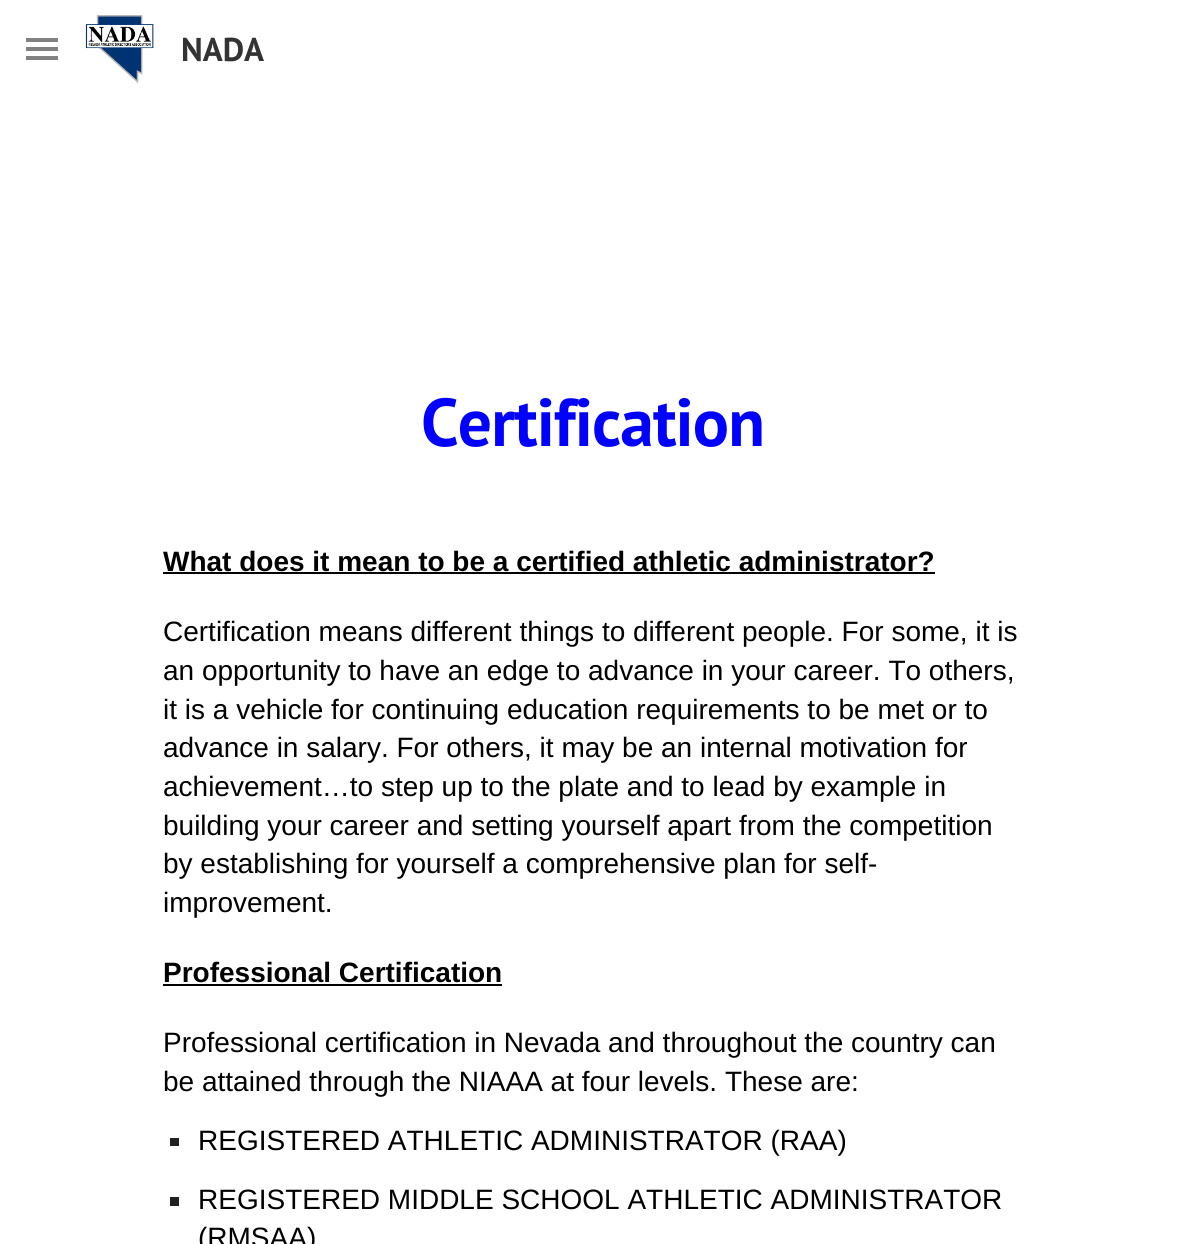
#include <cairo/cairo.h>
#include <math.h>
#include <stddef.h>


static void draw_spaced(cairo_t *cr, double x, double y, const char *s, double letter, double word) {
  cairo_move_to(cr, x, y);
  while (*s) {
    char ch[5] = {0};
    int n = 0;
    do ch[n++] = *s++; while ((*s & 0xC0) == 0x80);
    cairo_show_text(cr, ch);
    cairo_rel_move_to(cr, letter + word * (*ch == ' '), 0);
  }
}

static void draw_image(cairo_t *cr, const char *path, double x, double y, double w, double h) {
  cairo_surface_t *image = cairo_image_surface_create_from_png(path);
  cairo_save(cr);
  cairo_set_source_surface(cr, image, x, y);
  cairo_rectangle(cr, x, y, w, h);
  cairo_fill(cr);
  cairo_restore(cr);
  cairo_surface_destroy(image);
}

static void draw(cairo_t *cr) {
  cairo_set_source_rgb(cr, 1, 1, 1);
  cairo_paint(cr);
  cairo_set_source_rgb(cr, 129 / 255.0, 129 / 255.0, 129 / 255.0);
  cairo_rectangle(cr, 26, 38, 32, 4);
  cairo_fill(cr);
  cairo_rectangle(cr, 26, 47, 32, 4);
  cairo_fill(cr);
  cairo_rectangle(cr, 26, 56, 32, 4);
  cairo_fill(cr);
  draw_image(cr, "images/1.png", 85, 15, 69, 69);
  cairo_set_source_rgb(cr, 0, 0, 0);
  cairo_rectangle(cr, 163, 572, 772, 2);
  cairo_fill(cr);
  cairo_rectangle(cr, 163, 984, 339, 2);
  cairo_fill(cr);
  cairo_set_source_rgb(cr, 33 / 255.0, 33 / 255.0, 33 / 255.0);
  cairo_rectangle(cr, 170, 1138, 9, 8);
  cairo_fill(cr);
  cairo_rectangle(cr, 170, 1197, 9, 9);
  cairo_fill(cr);
  cairo_select_font_face(cr, "PT Sans", CAIRO_FONT_SLANT_NORMAL, CAIRO_FONT_WEIGHT_BOLD);
  cairo_set_font_size(cr, 33);
  cairo_set_source_rgb(cr, 51 / 255.0, 51 / 255.0, 51 / 255.0);
  cairo_move_to(cr, 181, 61);
  cairo_show_text(cr, "NADA");
  cairo_set_font_size(cr, 67.5);
  cairo_set_source_rgb(cr, 0, 0, 1);
  draw_spaced(cr, 421, 446, "Certification", -0.9, 0);
  cairo_select_font_face(cr, "Liberation Sans", CAIRO_FONT_SLANT_NORMAL, CAIRO_FONT_WEIGHT_BOLD);
  cairo_set_font_size(cr, 28);
  cairo_set_source_rgb(cr, 0, 0, 0);
  cairo_move_to(cr, 163, 571);
  cairo_show_text(cr, "What does it mean to be a certified athletic administrator?");
  cairo_select_font_face(cr, "Liberation Sans", CAIRO_FONT_SLANT_NORMAL, CAIRO_FONT_WEIGHT_NORMAL);
  cairo_move_to(cr, 163, 641);
  cairo_show_text(cr, "Certification means different things to different people. For some, it is");
  cairo_move_to(cr, 163, 680);
  cairo_show_text(cr, "an opportunity to have an edge to advance in your career. To others,");
  cairo_move_to(cr, 163, 719);
  cairo_show_text(cr, "it is a vehicle for continuing education requirements to be met or to");
  cairo_move_to(cr, 163, 757);
  cairo_show_text(cr, "advance in salary. For others, it may be an internal motivation for");
  cairo_move_to(cr, 163, 796);
  cairo_show_text(cr, "achievement…to step up to the plate and to lead by example in");
  cairo_move_to(cr, 163, 835);
  cairo_show_text(cr, "building your career and setting yourself apart from the competition");
  cairo_move_to(cr, 163, 873);
  cairo_show_text(cr, "by establishing for yourself a comprehensive plan for self-");
  cairo_move_to(cr, 163, 912);
  cairo_show_text(cr, "improvement.");
  cairo_select_font_face(cr, "Liberation Sans", CAIRO_FONT_SLANT_NORMAL, CAIRO_FONT_WEIGHT_BOLD);
  cairo_move_to(cr, 163, 982);
  cairo_show_text(cr, "Professional Certification");
  cairo_select_font_face(cr, "Liberation Sans", CAIRO_FONT_SLANT_NORMAL, CAIRO_FONT_WEIGHT_NORMAL);
  cairo_move_to(cr, 163, 1052);
  cairo_show_text(cr, "Professional certification in Nevada and throughout the country can");
  cairo_move_to(cr, 163, 1091);
  cairo_show_text(cr, "be attained through the NIAAA at four levels. These are:");
  cairo_move_to(cr, 198, 1150);
  cairo_show_text(cr, "REGISTERED ATHLETIC ADMINISTRATOR (RAA)");
  cairo_move_to(cr, 198, 1209);
  cairo_show_text(cr, "REGISTERED MIDDLE SCHOOL ATHLETIC ADMINISTRATOR");
  cairo_move_to(cr, 198, 1247);
  cairo_show_text(cr, "(RMSAA)");
}

int main(void) {
  cairo_surface_t *surface = cairo_image_surface_create(CAIRO_FORMAT_RGB24, 1185, 1244);
  cairo_t *cr = cairo_create(surface);
  cairo_font_options_t *options = cairo_font_options_create();
  cairo_font_options_set_hint_metrics(options, CAIRO_HINT_METRICS_OFF);
  cairo_font_options_set_hint_style(options, CAIRO_HINT_STYLE_NONE);
  cairo_set_font_options(cr, options);
  cairo_set_miter_limit(cr, 4);
  draw(cr);
  cairo_surface_write_to_png(surface, "out.png");
  cairo_font_options_destroy(options);
  cairo_destroy(cr);
  cairo_surface_destroy(surface);
  return 0;
}
